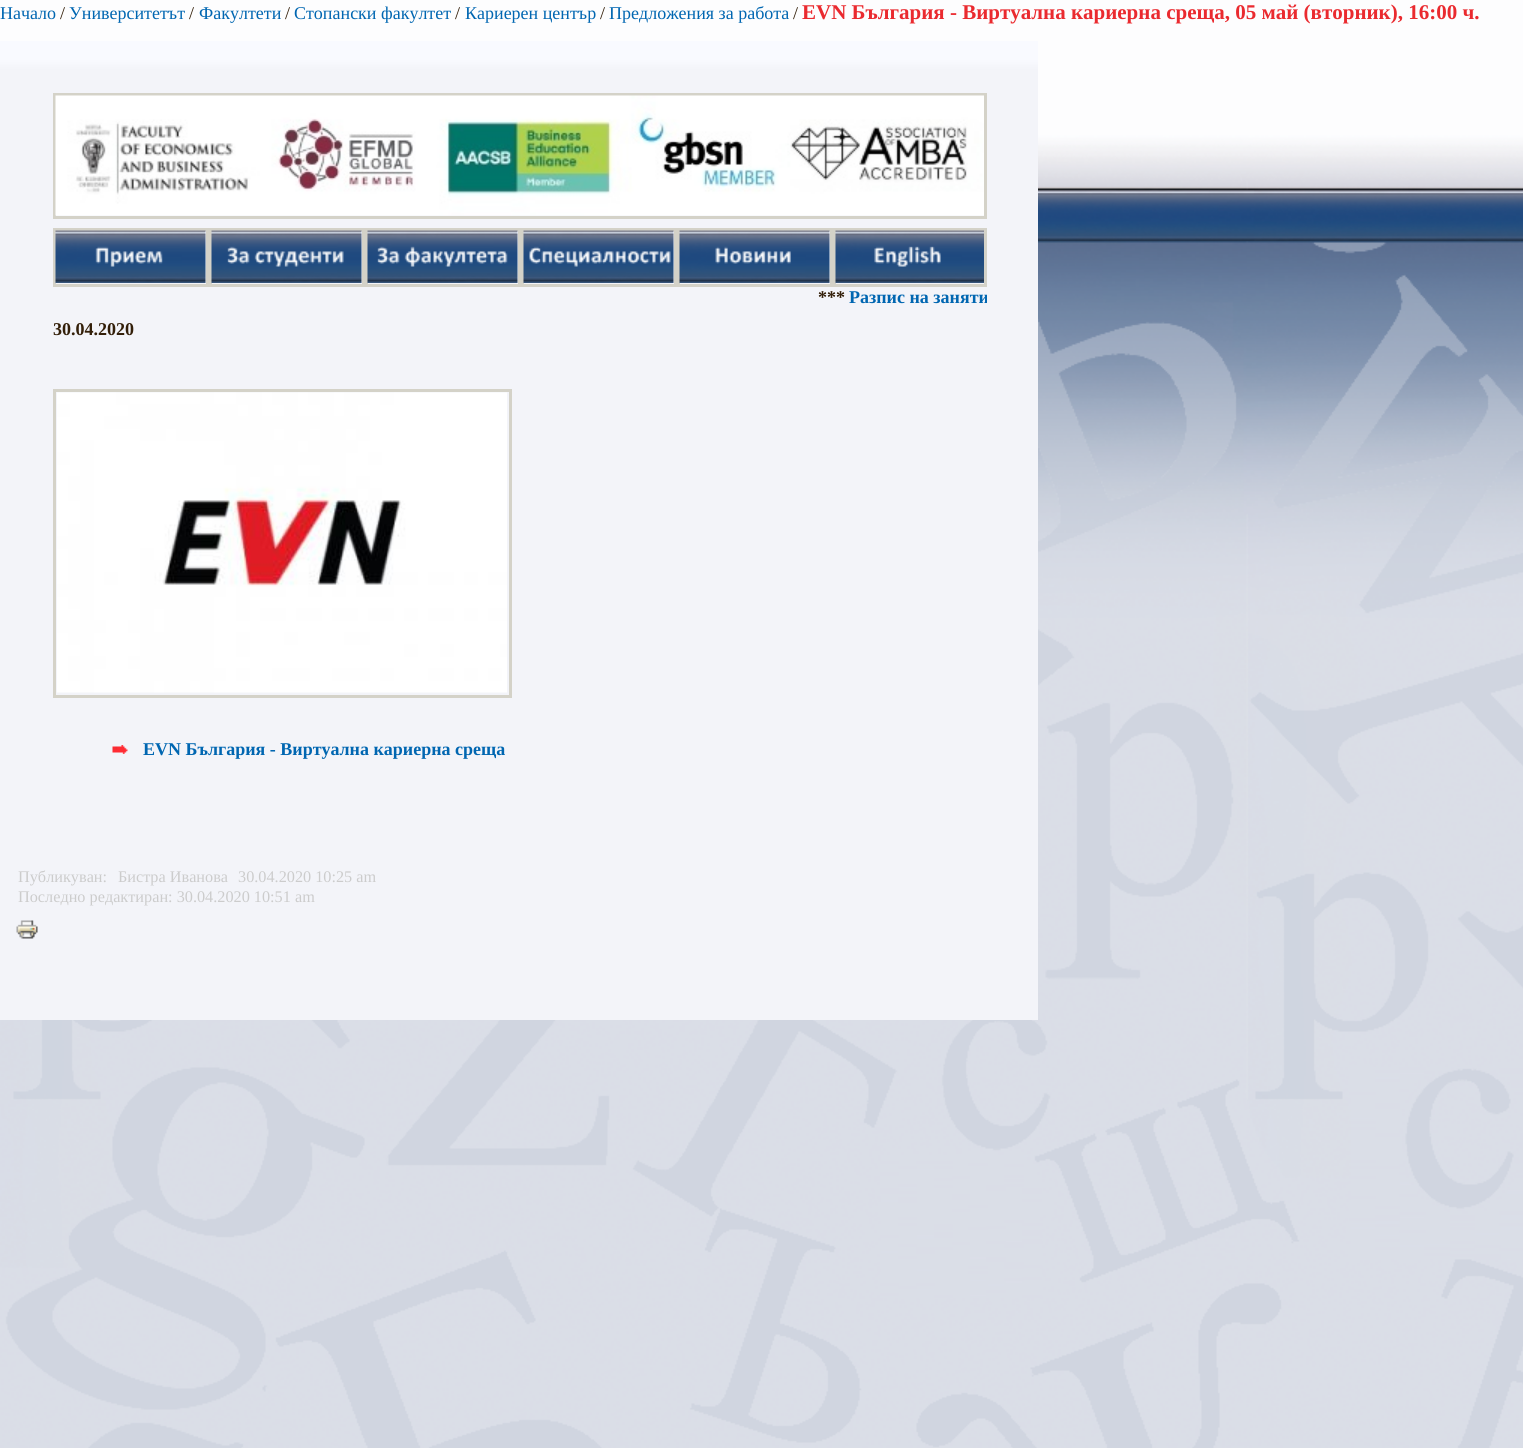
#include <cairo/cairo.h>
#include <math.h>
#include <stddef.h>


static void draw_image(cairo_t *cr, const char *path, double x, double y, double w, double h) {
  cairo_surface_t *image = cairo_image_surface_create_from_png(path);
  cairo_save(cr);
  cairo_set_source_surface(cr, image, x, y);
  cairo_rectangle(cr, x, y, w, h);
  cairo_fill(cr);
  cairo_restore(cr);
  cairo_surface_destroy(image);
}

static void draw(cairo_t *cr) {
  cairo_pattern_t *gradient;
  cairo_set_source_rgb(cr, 1, 1, 1);
  cairo_paint(cr);
  draw_image(cr, "images/1.png", 0, 0, 1523, 1448);
  gradient = cairo_pattern_create_linear(519, 40, 519, 1020);
  cairo_pattern_add_color_stop_rgba(gradient, 0.02, 249 / 255.0, 250 / 255.0, 1, 1);
  cairo_pattern_add_color_stop_rgba(gradient, 0.03, 243 / 255.0, 244 / 255.0, 249 / 255.0, 1);
  cairo_set_source(cr, gradient);
  cairo_pattern_destroy(gradient);
  cairo_rectangle(cr, 0, 41, 1038, 979);
  cairo_fill(cr);
  cairo_rectangle(cr, 54.5, 94.5, 931, 123);
  cairo_set_source_rgb(cr, 212 / 255.0, 210 / 255.0, 200 / 255.0);
  cairo_set_line_width(cr, 3);
  cairo_stroke(cr);
  draw_image(cr, "images/2.png", 55, 95, 929, 121);
  cairo_rectangle(cr, 54.5, 229.5, 153, 56);
  cairo_stroke(cr);
  draw_image(cr, "images/3.png", 55, 230, 151, 53);
  cairo_rectangle(cr, 210.5, 229.5, 153, 56);
  cairo_stroke(cr);
  draw_image(cr, "images/4.png", 211, 230, 151, 53);
  cairo_rectangle(cr, 366.5, 229.5, 153, 56);
  cairo_stroke(cr);
  draw_image(cr, "images/5.png", 367, 230, 151, 53);
  cairo_rectangle(cr, 522.5, 229.5, 153, 56);
  cairo_stroke(cr);
  draw_image(cr, "images/6.png", 523, 230, 151, 53);
  cairo_rectangle(cr, 678.5, 229.5, 153, 56);
  cairo_stroke(cr);
  draw_image(cr, "images/7.png", 679, 230, 151, 53);
  cairo_rectangle(cr, 834.5, 229.5, 151, 56);
  cairo_stroke(cr);
  draw_image(cr, "images/8.png", 835, 230, 149, 53);
  cairo_rectangle(cr, 54.5, 390.5, 456, 306);
  cairo_stroke(cr);
  draw_image(cr, "images/9.png", 57, 392, 450, 301);
  draw_image(cr, "images/10.png", 112, 745, 16, 9);
  draw_image(cr, "images/11.png", 16, 920, 22, 19);
  cairo_select_font_face(cr, "Liberation Serif", CAIRO_FONT_SLANT_NORMAL, CAIRO_FONT_WEIGHT_NORMAL);
  cairo_set_font_size(cr, 18);
  cairo_set_source_rgb(cr, 0, 102 / 255.0, 177 / 255.0);
  cairo_move_to(cr, 0, 19);
  cairo_show_text(cr, "Начало");
  cairo_set_source_rgb(cr, 51 / 255.0, 31 / 255.0, 9 / 255.0);
  cairo_move_to(cr, 60, 19);
  cairo_show_text(cr, "/");
  cairo_set_source_rgb(cr, 0, 102 / 255.0, 177 / 255.0);
  cairo_move_to(cr, 69, 19);
  cairo_show_text(cr, "Университетът");
  cairo_set_source_rgb(cr, 51 / 255.0, 31 / 255.0, 9 / 255.0);
  cairo_move_to(cr, 189, 19);
  cairo_show_text(cr, "/");
  cairo_set_source_rgb(cr, 0, 102 / 255.0, 177 / 255.0);
  cairo_move_to(cr, 199, 19);
  cairo_show_text(cr, "Факултети");
  cairo_set_source_rgb(cr, 51 / 255.0, 31 / 255.0, 9 / 255.0);
  cairo_move_to(cr, 285, 19);
  cairo_show_text(cr, "/");
  cairo_set_source_rgb(cr, 0, 102 / 255.0, 177 / 255.0);
  cairo_move_to(cr, 294, 19);
  cairo_show_text(cr, "Стопански факултет");
  cairo_set_source_rgb(cr, 51 / 255.0, 31 / 255.0, 9 / 255.0);
  cairo_move_to(cr, 455, 19);
  cairo_show_text(cr, "/");
  cairo_set_source_rgb(cr, 0, 102 / 255.0, 177 / 255.0);
  cairo_move_to(cr, 465, 19);
  cairo_show_text(cr, "Кариерен център");
  cairo_set_source_rgb(cr, 51 / 255.0, 31 / 255.0, 9 / 255.0);
  cairo_move_to(cr, 600, 19);
  cairo_show_text(cr, "/");
  cairo_set_source_rgb(cr, 0, 102 / 255.0, 177 / 255.0);
  cairo_move_to(cr, 609, 19);
  cairo_show_text(cr, "Предложения за работа");
  cairo_set_source_rgb(cr, 51 / 255.0, 31 / 255.0, 9 / 255.0);
  cairo_move_to(cr, 793, 19);
  cairo_show_text(cr, "/");
  cairo_select_font_face(cr, "Liberation Serif", CAIRO_FONT_SLANT_NORMAL, CAIRO_FONT_WEIGHT_BOLD);
  cairo_set_font_size(cr, 21);
  cairo_set_source_rgb(cr, 234 / 255.0, 42 / 255.0, 47 / 255.0);
  cairo_move_to(cr, 802, 19);
  cairo_show_text(cr, "EVN България - Виртуална кариерна среща, 05 май (вторник), 16:00 ч.");
  cairo_set_font_size(cr, 18);
  cairo_set_source_rgb(cr, 51 / 255.0, 31 / 255.0, 9 / 255.0);
  cairo_move_to(cr, 818, 303);
  cairo_show_text(cr, "***");
  cairo_save(cr);
  cairo_rectangle(cr, 53, 287, 934, 22);
  cairo_clip(cr);
  cairo_set_source_rgb(cr, 0, 102 / 255.0, 177 / 255.0);
  cairo_move_to(cr, 849, 303);
  cairo_show_text(cr, "Разпис на заняти");
  cairo_restore(cr);
  cairo_move_to(cr, 53, 335);
  cairo_show_text(cr, "30.04.2020");
  cairo_set_source_rgb(cr, 0, 102 / 255.0, 177 / 255.0);
  cairo_move_to(cr, 143, 755);
  cairo_show_text(cr, "EVN България - Виртуална кариерна среща");
  cairo_select_font_face(cr, "Liberation Serif", CAIRO_FONT_SLANT_NORMAL, CAIRO_FONT_WEIGHT_NORMAL);
  cairo_set_font_size(cr, 16.25);
  cairo_set_source_rgb(cr, 204 / 255.0, 204 / 255.0, 204 / 255.0);
  cairo_move_to(cr, 18, 882);
  cairo_show_text(cr, "Публикуван:");
  cairo_move_to(cr, 118, 882);
  cairo_show_text(cr, "Бистра Иванова");
  cairo_move_to(cr, 238, 882);
  cairo_show_text(cr, "30.04.2020 10:25 am");
  cairo_move_to(cr, 18, 902);
  cairo_show_text(cr, "Последно редактиран: 30.04.2020 10:51 am");
}

int main(void) {
  cairo_surface_t *surface = cairo_image_surface_create(CAIRO_FORMAT_RGB24, 1523, 1448);
  cairo_t *cr = cairo_create(surface);
  cairo_font_options_t *options = cairo_font_options_create();
  cairo_font_options_set_hint_metrics(options, CAIRO_HINT_METRICS_OFF);
  cairo_font_options_set_hint_style(options, CAIRO_HINT_STYLE_NONE);
  cairo_set_font_options(cr, options);
  cairo_set_miter_limit(cr, 4);
  draw(cr);
  cairo_surface_write_to_png(surface, "out.png");
  cairo_font_options_destroy(options);
  cairo_destroy(cr);
  cairo_surface_destroy(surface);
  return 0;
}
